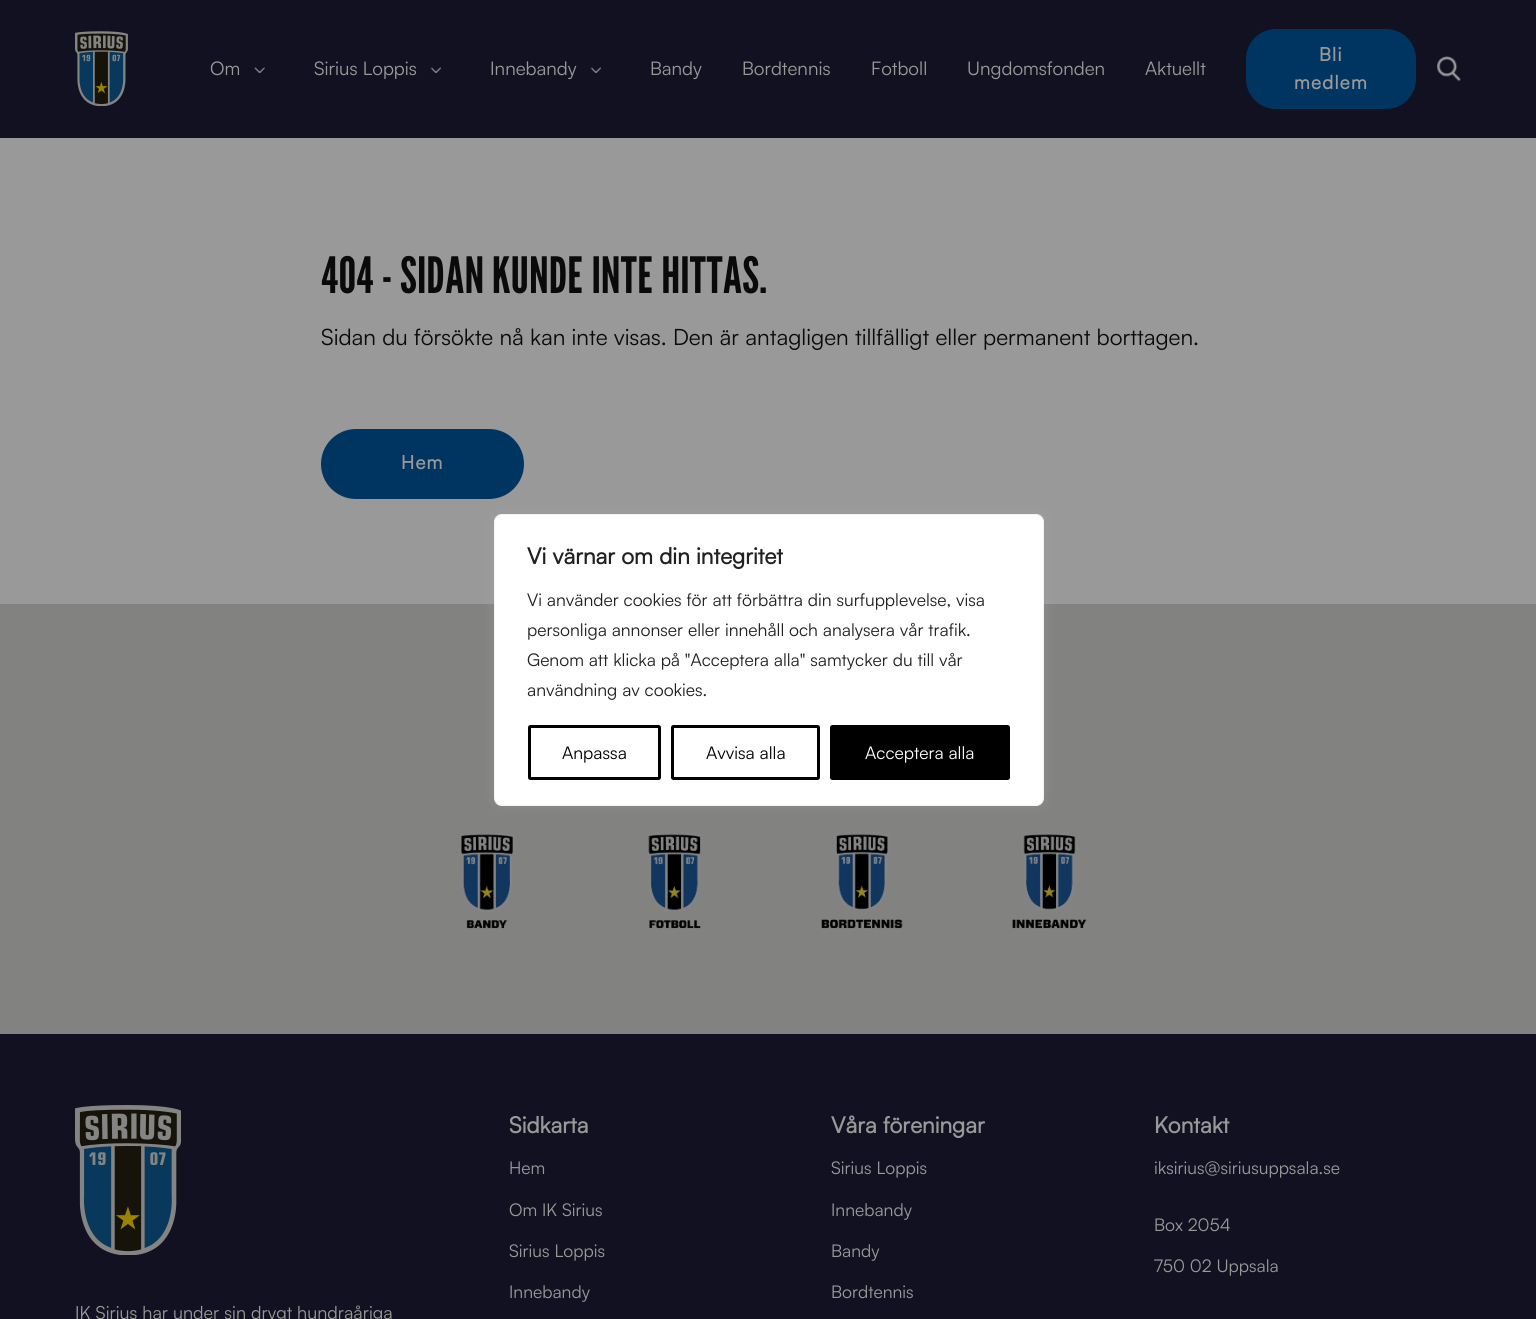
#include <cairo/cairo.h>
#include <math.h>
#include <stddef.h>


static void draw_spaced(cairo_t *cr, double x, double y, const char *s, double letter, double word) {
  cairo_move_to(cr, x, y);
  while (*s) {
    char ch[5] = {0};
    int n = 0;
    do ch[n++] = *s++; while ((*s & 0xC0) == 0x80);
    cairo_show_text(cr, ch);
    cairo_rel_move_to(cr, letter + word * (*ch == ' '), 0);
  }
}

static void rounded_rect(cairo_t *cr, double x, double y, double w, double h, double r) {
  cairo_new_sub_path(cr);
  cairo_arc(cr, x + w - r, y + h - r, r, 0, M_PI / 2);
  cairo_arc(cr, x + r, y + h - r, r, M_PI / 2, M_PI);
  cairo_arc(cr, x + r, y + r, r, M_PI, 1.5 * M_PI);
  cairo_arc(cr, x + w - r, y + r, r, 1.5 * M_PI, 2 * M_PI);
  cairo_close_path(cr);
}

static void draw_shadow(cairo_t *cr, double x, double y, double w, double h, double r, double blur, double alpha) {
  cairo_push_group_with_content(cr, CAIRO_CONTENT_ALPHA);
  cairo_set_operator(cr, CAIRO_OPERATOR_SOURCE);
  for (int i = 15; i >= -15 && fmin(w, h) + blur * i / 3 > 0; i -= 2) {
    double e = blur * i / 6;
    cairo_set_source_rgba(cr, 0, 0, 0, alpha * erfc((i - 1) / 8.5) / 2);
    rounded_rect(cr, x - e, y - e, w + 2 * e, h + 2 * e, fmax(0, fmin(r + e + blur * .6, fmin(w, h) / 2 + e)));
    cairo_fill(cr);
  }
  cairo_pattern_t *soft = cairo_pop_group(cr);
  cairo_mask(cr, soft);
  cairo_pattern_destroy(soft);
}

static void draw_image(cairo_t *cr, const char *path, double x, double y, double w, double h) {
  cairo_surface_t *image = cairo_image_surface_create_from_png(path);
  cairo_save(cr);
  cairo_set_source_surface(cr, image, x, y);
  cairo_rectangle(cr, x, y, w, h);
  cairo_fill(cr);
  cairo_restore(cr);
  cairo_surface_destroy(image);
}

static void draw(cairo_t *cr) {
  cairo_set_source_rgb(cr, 153 / 255.0, 153 / 255.0, 153 / 255.0);
  cairo_paint(cr);
  cairo_set_source_rgb(cr, 17 / 255.0, 17 / 255.0, 34 / 255.0);
  cairo_rectangle(cr, 0, 0, 1536, 138);
  cairo_fill(cr);
  draw_image(cr, "images/1.png", 75, 31, 53, 75);
  draw_image(cr, "images/2.png", 254, 67, 11, 6);
  draw_image(cr, "images/3.png", 430, 67, 11, 6);
  draw_image(cr, "images/3.png", 590, 67, 11, 6);
  cairo_set_source_rgb(cr, 0, 53 / 255.0, 97 / 255.0);
  rounded_rect(cr, 1246, 29, 170, 80, 30);
  cairo_fill(cr);
  draw_image(cr, "images/4.png", 1437, 56, 24, 26);
  rounded_rect(cr, 321, 429, 203, 70, 35);
  cairo_fill(cr);
  cairo_set_source_rgb(cr, 130 / 255.0, 130 / 255.0, 129 / 255.0);
  cairo_rectangle(cr, 0, 604, 1536, 430);
  cairo_fill(cr);
  draw_image(cr, "images/5.png", 460, 833, 55, 96);
  draw_image(cr, "images/6.png", 647, 833, 56, 96);
  draw_image(cr, "images/7.png", 821, 833, 82, 96);
  draw_image(cr, "images/8.png", 1012, 833, 75, 96);
  cairo_set_source_rgb(cr, 172 / 255.0, 171 / 255.0, 171 / 255.0);
  draw_shadow(cr, 494, 513, 550, 292, 8, 6, 0.3);
  cairo_set_source_rgb(cr, 1, 1, 1);
  rounded_rect(cr, 494.5, 514.5, 549, 291, 7.5);
  cairo_fill_preserve(cr);
  cairo_set_source_rgb(cr, 244 / 255.0, 244 / 255.0, 244 / 255.0);
  cairo_set_line_width(cr, 1);
  cairo_stroke(cr);
  rounded_rect(cr, 529.5, 726.5, 130, 52, 1);
  cairo_set_source_rgb(cr, 0, 0, 0);
  cairo_set_line_width(cr, 3);
  cairo_stroke(cr);
  rounded_rect(cr, 672.5, 726.5, 146, 52, 1);
  cairo_stroke(cr);
  rounded_rect(cr, 831.5, 726.5, 177, 52, 1);
  cairo_fill_preserve(cr);
  cairo_stroke(cr);
  cairo_set_source_rgb(cr, 17 / 255.0, 17 / 255.0, 34 / 255.0);
  cairo_rectangle(cr, 0, 1034, 1536, 285);
  cairo_fill(cr);
  draw_image(cr, "images/9.png", 75, 1105, 106, 150);
  cairo_select_font_face(cr, "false", CAIRO_FONT_SLANT_NORMAL, CAIRO_FONT_WEIGHT_NORMAL);
  cairo_set_font_size(cr, 18.75);
  cairo_set_source_rgb(cr, 153 / 255.0, 153 / 255.0, 153 / 255.0);
  cairo_move_to(cr, 210, 75);
  cairo_show_text(cr, "Om");
  cairo_move_to(cr, 314, 75);
  cairo_show_text(cr, "Sirius Loppis");
  cairo_move_to(cr, 490, 75);
  cairo_show_text(cr, "Innebandy");
  cairo_move_to(cr, 650, 75);
  cairo_show_text(cr, "Bandy");
  cairo_move_to(cr, 742, 75);
  cairo_show_text(cr, "Bordtennis");
  cairo_move_to(cr, 871, 75);
  cairo_show_text(cr, "Fotboll");
  cairo_move_to(cr, 967, 75);
  cairo_show_text(cr, "Ungdomsfonden");
  cairo_move_to(cr, 1145, 75);
  cairo_show_text(cr, "Aktuellt");
  cairo_select_font_face(cr, "false", CAIRO_FONT_SLANT_NORMAL, CAIRO_FONT_WEIGHT_BOLD);
  draw_spaced(cr, 1319, 61, "Bli", 1.25, 0);
  draw_spaced(cr, 1294, 89, "medlem", 1.25, 0);
  cairo_select_font_face(cr, "League Gothic", CAIRO_FONT_SLANT_NORMAL, CAIRO_FONT_WEIGHT_NORMAL);
  cairo_set_font_size(cr, 50);
  cairo_set_source_rgb(cr, 10 / 255.0, 10 / 255.0, 10 / 255.0);
  cairo_move_to(cr, 321, 293);
  cairo_show_text(cr, "404 - SIDAN KUNDE INTE HITTAS.");
  cairo_select_font_face(cr, "false", CAIRO_FONT_SLANT_NORMAL, CAIRO_FONT_WEIGHT_NORMAL);
  cairo_set_font_size(cr, 22.5);
  cairo_move_to(cr, 321, 345);
  cairo_show_text(cr, "Sidan du försökte nå kan inte visas. Den är antagligen tillfälligt eller permanent borttagen.");
  cairo_select_font_face(cr, "false", CAIRO_FONT_SLANT_NORMAL, CAIRO_FONT_WEIGHT_BOLD);
  cairo_set_font_size(cr, 18.75);
  cairo_set_source_rgb(cr, 153 / 255.0, 153 / 255.0, 153 / 255.0);
  draw_spaced(cr, 401, 469, "Hem", 1.25, 0);
  cairo_set_font_size(cr, 22.5);
  cairo_set_source_rgb(cr, 33 / 255.0, 33 / 255.0, 33 / 255.0);
  cairo_move_to(cr, 527, 564);
  cairo_show_text(cr, "Vi värnar om din integritet");
  cairo_select_font_face(cr, "false", CAIRO_FONT_SLANT_NORMAL, CAIRO_FONT_WEIGHT_NORMAL);
  cairo_set_font_size(cr, 17.5);
  cairo_move_to(cr, 527, 606);
  cairo_show_text(cr, "Vi använder cookies för att förbättra din surfupplevelse, visa");
  cairo_move_to(cr, 527, 636);
  cairo_show_text(cr, "personliga annonser eller innehåll och analysera vår trafik.");
  cairo_move_to(cr, 527, 666);
  cairo_show_text(cr, "Genom att klicka på \"Acceptera alla\" samtycker du till vår");
  cairo_move_to(cr, 527, 696);
  cairo_show_text(cr, "användning av cookies.");
  cairo_set_source_rgb(cr, 0, 0, 0);
  cairo_move_to(cr, 562, 759);
  cairo_show_text(cr, "Anpassa");
  cairo_move_to(cr, 706, 759);
  cairo_show_text(cr, "Avvisa alla");
  cairo_set_source_rgb(cr, 1, 1, 1);
  cairo_move_to(cr, 865, 759);
  cairo_show_text(cr, "Acceptera alla");
  cairo_select_font_face(cr, "false", CAIRO_FONT_SLANT_NORMAL, CAIRO_FONT_WEIGHT_BOLD);
  cairo_set_font_size(cr, 22.5);
  cairo_set_source_rgb(cr, 153 / 255.0, 153 / 255.0, 153 / 255.0);
  cairo_move_to(cr, 509, 1133);
  cairo_show_text(cr, "Sidkarta");
  cairo_select_font_face(cr, "false", CAIRO_FONT_SLANT_NORMAL, CAIRO_FONT_WEIGHT_NORMAL);
  cairo_set_font_size(cr, 17.5);
  cairo_move_to(cr, 509, 1174);
  cairo_show_text(cr, "Hem");
  cairo_move_to(cr, 509, 1216);
  cairo_show_text(cr, "Om IK Sirius");
  cairo_move_to(cr, 509, 1257);
  cairo_show_text(cr, "Sirius Loppis");
  cairo_move_to(cr, 509, 1298);
  cairo_show_text(cr, "Innebandy");
  cairo_select_font_face(cr, "false", CAIRO_FONT_SLANT_NORMAL, CAIRO_FONT_WEIGHT_BOLD);
  cairo_set_font_size(cr, 22.5);
  cairo_move_to(cr, 831, 1133);
  cairo_show_text(cr, "Våra föreningar");
  cairo_select_font_face(cr, "false", CAIRO_FONT_SLANT_NORMAL, CAIRO_FONT_WEIGHT_NORMAL);
  cairo_set_font_size(cr, 17.5);
  cairo_move_to(cr, 831, 1174);
  cairo_show_text(cr, "Sirius Loppis");
  cairo_move_to(cr, 831, 1216);
  cairo_show_text(cr, "Innebandy");
  cairo_move_to(cr, 831, 1257);
  cairo_show_text(cr, "Bandy");
  cairo_move_to(cr, 831, 1298);
  cairo_show_text(cr, "Bordtennis");
  cairo_select_font_face(cr, "false", CAIRO_FONT_SLANT_NORMAL, CAIRO_FONT_WEIGHT_BOLD);
  cairo_set_font_size(cr, 22.5);
  cairo_move_to(cr, 1154, 1133);
  cairo_show_text(cr, "Kontakt");
  cairo_select_font_face(cr, "false", CAIRO_FONT_SLANT_NORMAL, CAIRO_FONT_WEIGHT_NORMAL);
  cairo_set_font_size(cr, 17.5);
  cairo_move_to(cr, 1154, 1174);
  cairo_show_text(cr, "iksirius@siriusuppsala.se");
  cairo_move_to(cr, 1154, 1231);
  cairo_show_text(cr, "Box 2054");
  cairo_move_to(cr, 1154, 1272);
  cairo_show_text(cr, "750 02 Uppsala");
  cairo_set_font_size(cr, 18);
  cairo_move_to(cr, 75, 1319);
  cairo_show_text(cr, "IK Sirius har under sin drygt hundraåriga");
}

int main(void) {
  cairo_surface_t *surface = cairo_image_surface_create(CAIRO_FORMAT_RGB24, 1536, 1319);
  cairo_t *cr = cairo_create(surface);
  cairo_font_options_t *options = cairo_font_options_create();
  cairo_font_options_set_hint_metrics(options, CAIRO_HINT_METRICS_OFF);
  cairo_font_options_set_hint_style(options, CAIRO_HINT_STYLE_NONE);
  cairo_set_font_options(cr, options);
  cairo_set_miter_limit(cr, 4);
  draw(cr);
  cairo_surface_write_to_png(surface, "out.png");
  cairo_font_options_destroy(options);
  cairo_destroy(cr);
  cairo_surface_destroy(surface);
  return 0;
}
